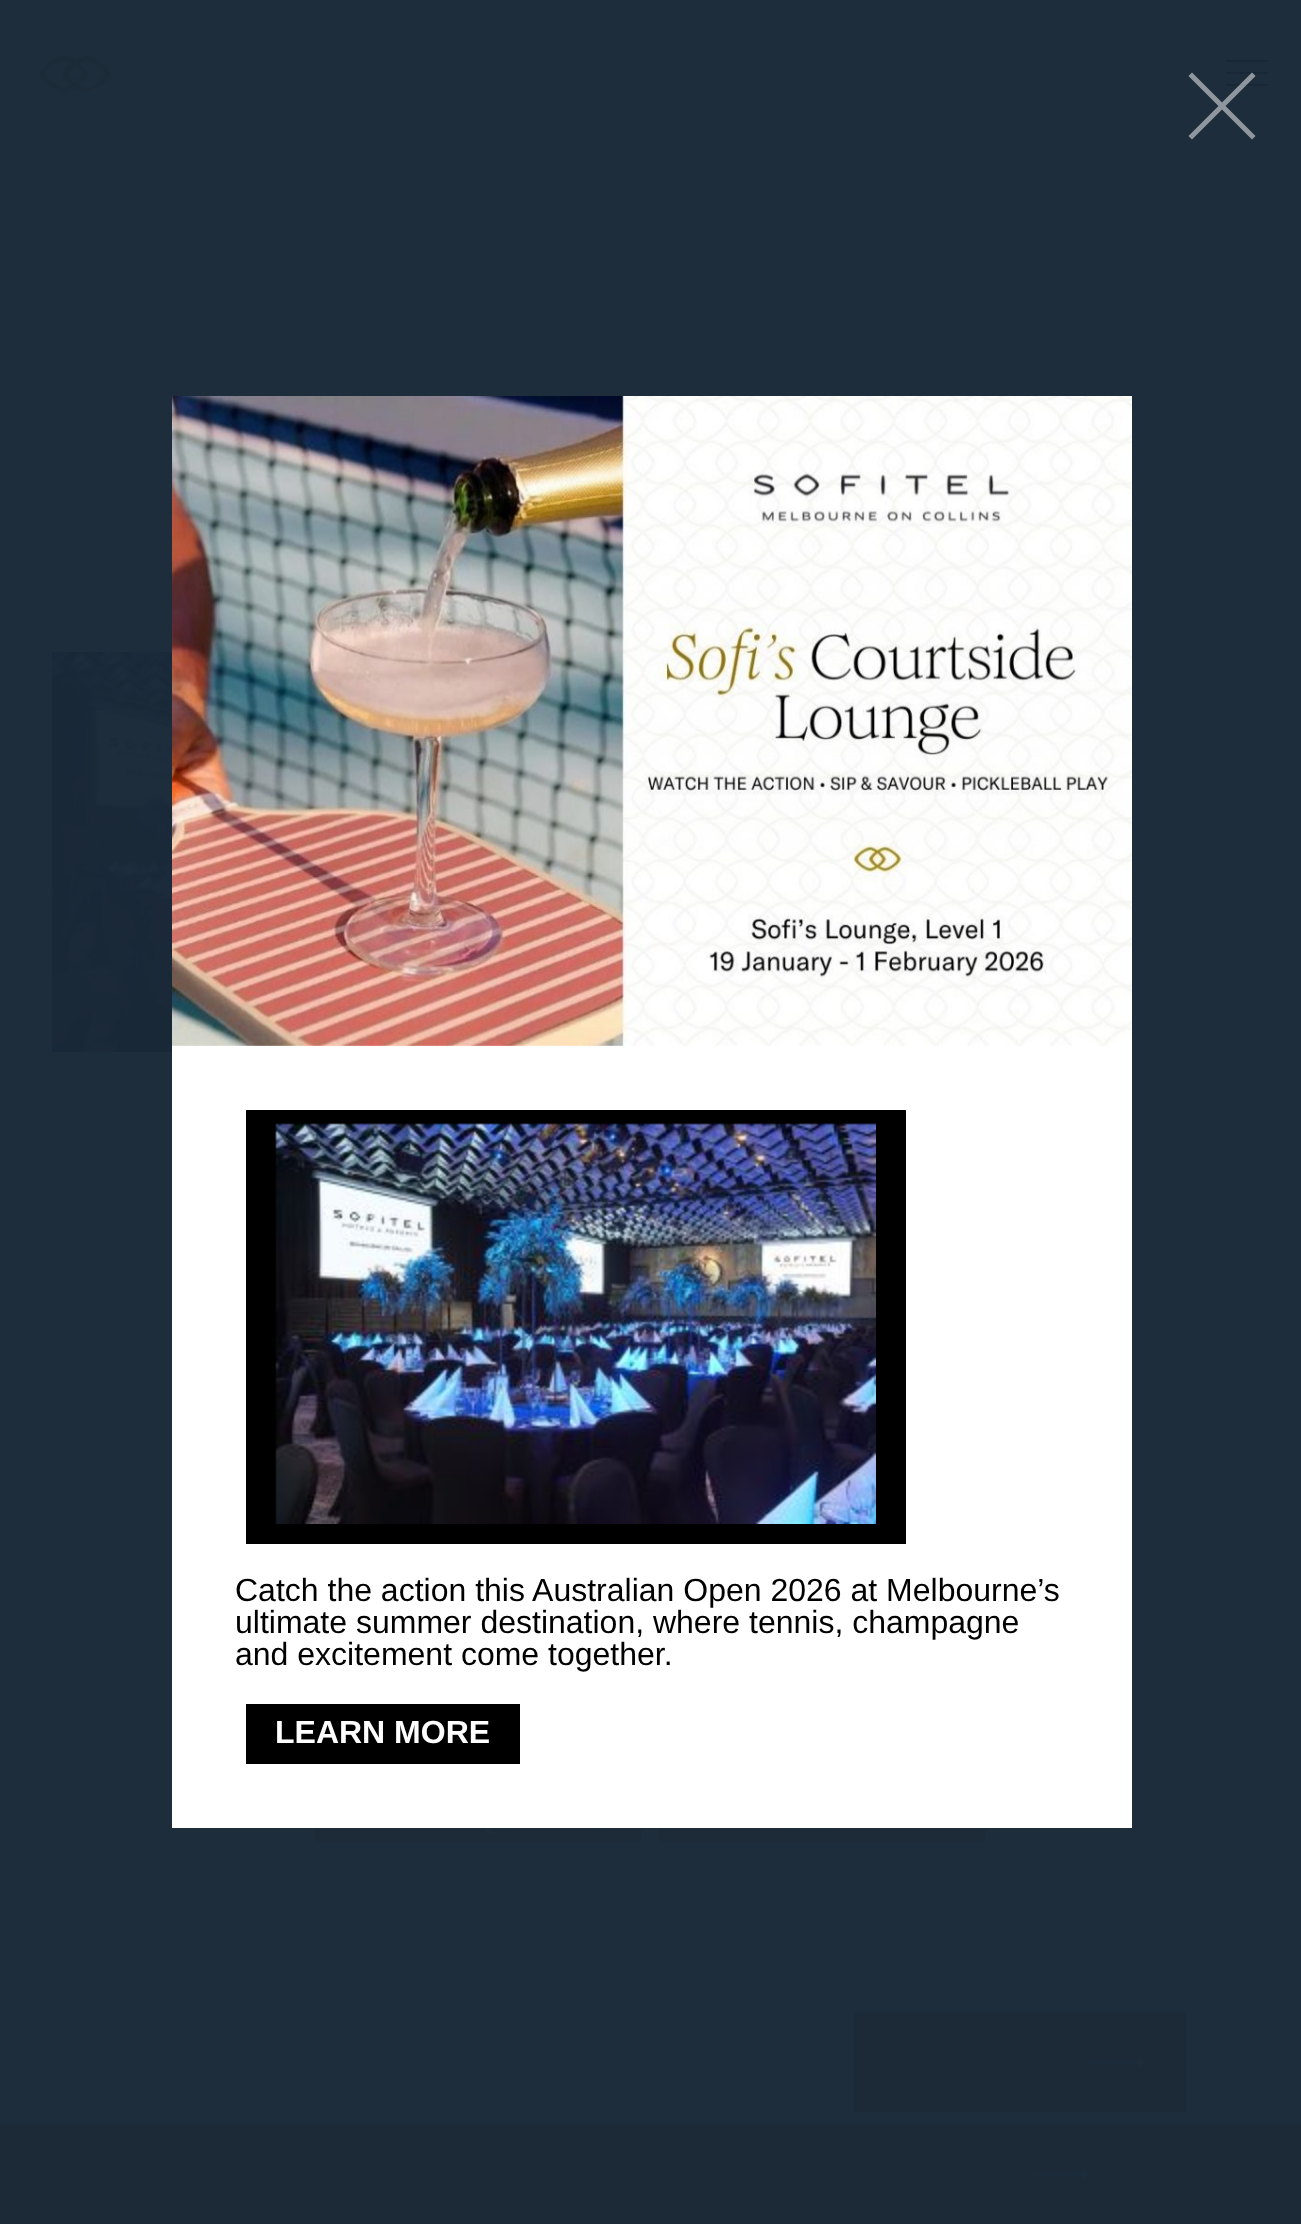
<?xml version="1.0" encoding="UTF-8"?>
<svg xmlns="http://www.w3.org/2000/svg" xmlns:xlink="http://www.w3.org/1999/xlink" width="1301" height="2224">
  <rect width="100%" height="100%" fill="#1e2d3c" />
  <image x="40" y="56" width="70" height="36" xlink:href="image1.png" />
  <rect x="1226" y="72" width="42" height="2" fill="#192837" />
  <rect x="1226" y="60" width="42" height="2" fill="#192837" />
  <rect x="1226" y="84" width="42" height="2" fill="#192837" />
  <rect y="2124" width="1301" height="100" fill="#1c2a38" />
  <image x="1030" y="2168" width="60" height="12" xlink:href="image2.png" />
  <image x="52" y="652" width="120" height="400" xlink:href="image3.png" />
  <rect x="314" y="1742" width="328" height="100" rx="8" fill="#1c2b37" />
  <image x="483" y="1828" width="119" height="6" xlink:href="image4.png" />
  <rect x="658" y="1742" width="328" height="100" rx="8" fill="#1c2b37" />
  <image x="783" y="1828" width="38" height="3" xlink:href="image5.png" />
  <rect x="854" y="2012" width="332" height="100" fill="#1c2a38" />
  <image x="1086" y="2056" width="60" height="12" xlink:href="image2.png" />
  <path d="M 1192 76 l 60 60 m -60 0 l 60 -60" fill="none" stroke="#ffffff" stroke-opacity="0.5" stroke-width="5" stroke-linecap="square" />
  <rect x="172" y="1045" width="960" height="783" fill="#ffffff" />
  <image x="172" y="396" width="960" height="650" xlink:href="image6.png" />
  <rect x="246" y="1110" width="660" height="434" fill="#000000" />
  <image x="275" y="1123" width="601" height="401" xlink:href="image7.png" />
  <rect x="246" y="1704" width="274" height="60" fill="#000000" />
  <text x="235" y="1601" style="font-family: Liberation Sans; font-size: 32px; fill: #000000">Catch the action this Australian Open 2026 at Melbourne’s</text>
  <text x="235" y="1633" style="font-family: Liberation Sans; font-size: 32px; fill: #000000">ultimate summer destination, where tennis, champagne</text>
  <text x="235" y="1665" style="font-family: Liberation Sans; font-size: 32px; fill: #000000">and excitement come together.</text>
  <text x="275" y="1743" style="font-family: Liberation Sans; font-size: 32px; font-weight: bold; fill: #ffffff">LEARN MORE</text>
</svg>
